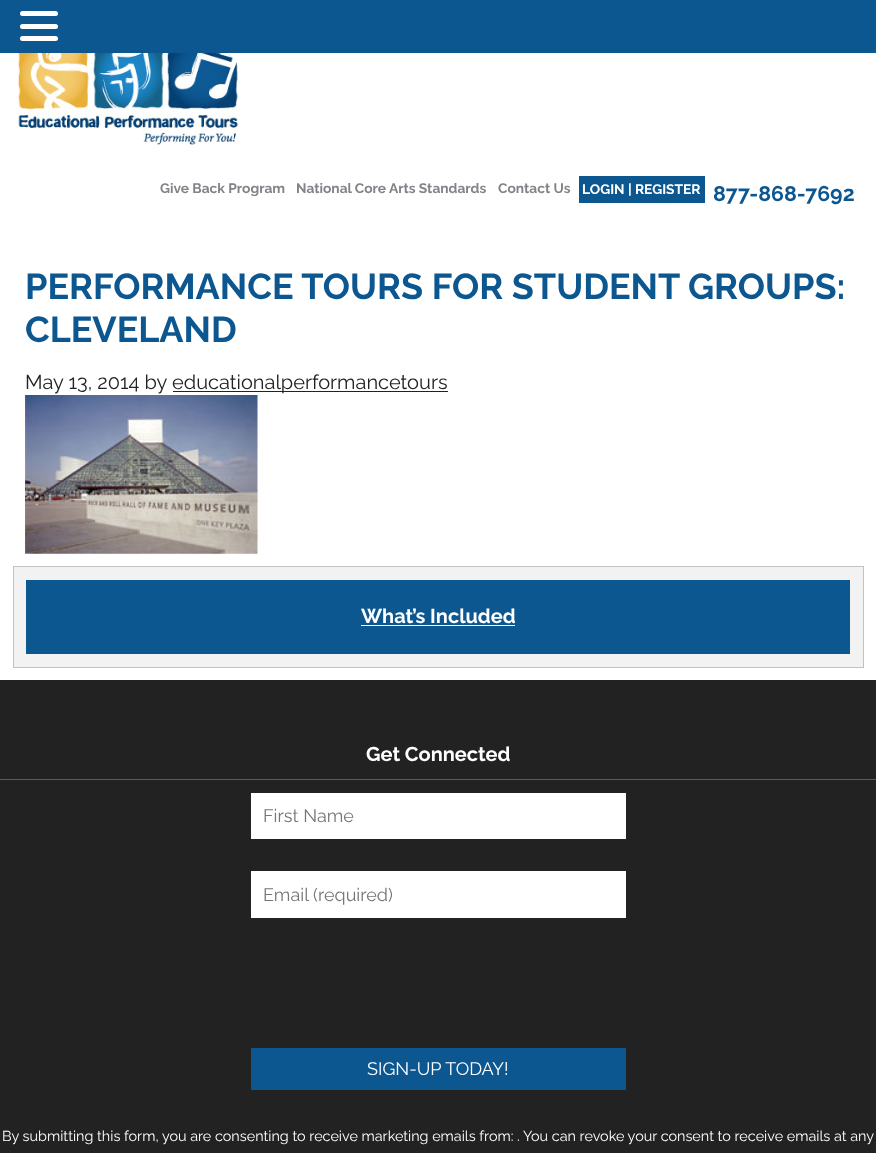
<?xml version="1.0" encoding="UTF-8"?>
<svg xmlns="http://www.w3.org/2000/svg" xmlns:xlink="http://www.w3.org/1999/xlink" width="876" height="1153">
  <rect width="100%" height="100%" fill="#ffffff" />
  <rect width="876" height="53" fill="#0d5791" />
  <rect x="20" y="11" width="38" height="5" rx="2.5" fill="#ffffff" />
  <rect x="20" y="24" width="38" height="5" rx="2.5" fill="#ffffff" />
  <rect x="20" y="36" width="38" height="5" rx="2.5" fill="#ffffff" />
  <image x="18" y="53" width="220" height="92" xlink:href="image1.png" />
  <rect x="579" y="176" width="126" height="27" fill="#0d5791" />
  <rect x="173" y="391" width="275" height="1" fill="#222222" />
  <image x="25" y="395" width="233" height="159" xlink:href="image2.png" />
  <rect x="13.5" y="566.5" width="850" height="101" fill="#f2f2f3" stroke="#c2c2c2" />
  <rect x="26" y="580" width="824" height="74" fill="#0d5791" />
  <rect x="361" y="625" width="154" height="1" fill="#ffffff" />
  <rect y="680" width="876" height="473" fill="#222222" />
  <rect y="779" width="876" height="1" fill="#5b5b5b" />
  <rect x="251" y="793" width="375" height="46" fill="#ffffff" />
  <rect x="251" y="871" width="375" height="47" fill="#ffffff" />
  <rect x="251" y="1048" width="375" height="42" fill="#0d5791" />
  <text x="160" y="193" style="font-family: Raleway; font-size: 13.75px; font-weight: bold; fill: #848288">Give Back Program</text>
  <text x="296" y="193" style="font-family: Raleway; font-size: 13.75px; font-weight: bold; fill: #848288">National Core Arts Standards</text>
  <text x="498" y="193" style="font-family: Raleway; font-size: 13.75px; font-weight: bold; fill: #848288">Contact Us</text>
  <text x="582" y="194" style="font-family: Raleway; font-size: 13.75px; font-weight: bold; fill: #ffffff">LOGIN | REGISTER</text>
  <text x="713" y="201" style="font-family: Raleway; font-size: 21.25px; font-weight: bold; fill: #0d5791">877-868-7692</text>
  <text x="25" y="299" style="font-family: Raleway; font-size: 36px; font-weight: bold; fill: #0d5791">PERFORMANCE TOURS FOR STUDENT GROUPS:</text>
  <text x="25" y="342" style="font-family: Raleway; font-size: 36px; font-weight: bold; fill: #0d5791">CLEVELAND</text>
  <text x="25" y="389" style="font-family: Raleway; font-size: 20px; fill: #222222">May 13, 2014 by</text>
  <text x="172" y="389" style="font-family: Raleway; font-size: 20px; fill: #222222">educationalperformancetours</text>
  <text x="361" y="623" style="font-family: Raleway; font-size: 20px; font-weight: bold; fill: #ffffff">What’s Included</text>
  <text x="366" y="761" style="font-family: Raleway; font-size: 20px; font-weight: bold; fill: #ffffff">Get Connected</text>
  <text x="263" y="822" style="font-family: Raleway; font-size: 18px; fill: #757575">First Name</text>
  <text x="263" y="901" style="font-family: Raleway; font-size: 18px; fill: #757575">Email (required)</text>
  <text x="367" y="1075" style="font-family: Raleway; font-size: 18px; fill: #ffffff">SIGN-UP TODAY!</text>
  <text x="2" y="1141" style="font-family: Raleway; font-size: 14.4px; fill: #ffffff">By submitting this form, you are consenting to receive marketing emails from: . You can revoke your consent to receive emails at any</text>
</svg>
